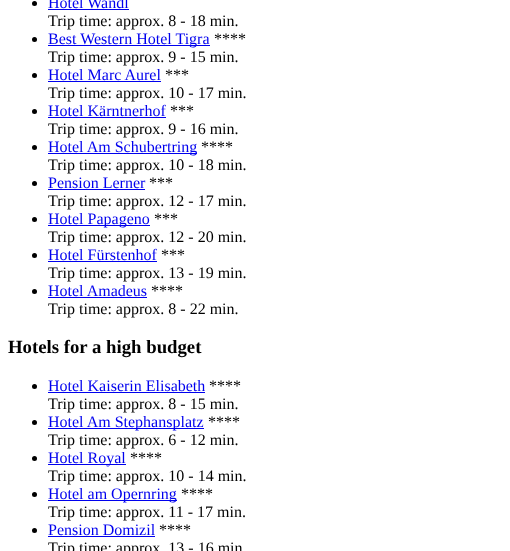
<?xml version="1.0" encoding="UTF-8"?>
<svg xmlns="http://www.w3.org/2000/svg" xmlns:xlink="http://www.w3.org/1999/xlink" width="510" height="551">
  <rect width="100%" height="100%" fill="#ffffff" />
  <circle cx="34.5" cy="3.5" r="2.5" fill="#000000" />
  <rect x="48" y="9" width="81" height="1" fill="#0000ee" />
  <circle cx="34.5" cy="39.5" r="2.5" fill="#000000" />
  <rect x="48" y="45" width="162" height="1" fill="#0000ee" />
  <circle cx="34.5" cy="75.5" r="2.5" fill="#000000" />
  <rect x="48" y="81" width="113" height="1" fill="#0000ee" />
  <circle cx="34.5" cy="111.5" r="2.5" fill="#000000" />
  <rect x="48" y="117" width="118" height="1" fill="#0000ee" />
  <circle cx="34.5" cy="147.5" r="2.5" fill="#000000" />
  <rect x="48" y="153" width="149" height="1" fill="#0000ee" />
  <circle cx="34.5" cy="183.5" r="2.5" fill="#000000" />
  <rect x="48" y="189" width="97" height="1" fill="#0000ee" />
  <circle cx="34.5" cy="219.5" r="2.5" fill="#000000" />
  <rect x="48" y="225" width="102" height="1" fill="#0000ee" />
  <circle cx="34.5" cy="255.5" r="2.5" fill="#000000" />
  <rect x="48" y="261" width="109" height="1" fill="#0000ee" />
  <circle cx="34.5" cy="291.5" r="2.5" fill="#000000" />
  <rect x="48" y="297" width="99" height="1" fill="#0000ee" />
  <circle cx="34.5" cy="386.5" r="2.5" fill="#000000" />
  <rect x="48" y="392" width="157" height="1" fill="#0000ee" />
  <circle cx="34.5" cy="422.5" r="2.5" fill="#000000" />
  <rect x="48" y="428" width="156" height="1" fill="#0000ee" />
  <circle cx="34.5" cy="458.5" r="2.5" fill="#000000" />
  <rect x="48" y="464" width="78" height="1" fill="#0000ee" />
  <circle cx="34.5" cy="494.5" r="2.5" fill="#000000" />
  <rect x="48" y="500" width="129" height="1" fill="#0000ee" />
  <circle cx="34.5" cy="530.5" r="2.5" fill="#000000" />
  <rect x="48" y="536" width="107" height="1" fill="#0000ee" />
  <text x="48" y="8" style="font-family: Liberation Serif; font-size: 16px; fill: #0000ee">Hotel Wandl</text>
  <text x="48" y="26" style="font-family: Liberation Serif; font-size: 16px; fill: #000000">Trip time: approx. 8 - 18 min.</text>
  <text x="48" y="44" style="font-family: Liberation Serif; font-size: 16px; fill: #0000ee">Best Western Hotel Tigra</text>
  <text x="214" y="44" style="font-family: Liberation Serif; font-size: 16px; fill: #000000">****</text>
  <text x="48" y="62" style="font-family: Liberation Serif; font-size: 16px; fill: #000000">Trip time: approx. 9 - 15 min.</text>
  <text x="48" y="80" style="font-family: Liberation Serif; font-size: 16px; fill: #0000ee">Hotel Marc Aurel</text>
  <text x="165" y="80" style="font-family: Liberation Serif; font-size: 16px; fill: #000000">***</text>
  <text x="48" y="98" style="font-family: Liberation Serif; font-size: 16px; fill: #000000">Trip time: approx. 10 - 17 min.</text>
  <text x="48" y="116" style="font-family: Liberation Serif; font-size: 16px; fill: #0000ee">Hotel Kärntnerhof</text>
  <text x="170" y="116" style="font-family: Liberation Serif; font-size: 16px; fill: #000000">***</text>
  <text x="48" y="134" style="font-family: Liberation Serif; font-size: 16px; fill: #000000">Trip time: approx. 9 - 16 min.</text>
  <text x="48" y="152" style="font-family: Liberation Serif; font-size: 16px; fill: #0000ee">Hotel Am Schubertring</text>
  <text x="201" y="152" style="font-family: Liberation Serif; font-size: 16px; fill: #000000">****</text>
  <text x="48" y="170" style="font-family: Liberation Serif; font-size: 16px; fill: #000000">Trip time: approx. 10 - 18 min.</text>
  <text x="48" y="188" style="font-family: Liberation Serif; font-size: 16px; fill: #0000ee">Pension Lerner</text>
  <text x="149" y="188" style="font-family: Liberation Serif; font-size: 16px; fill: #000000">***</text>
  <text x="48" y="206" style="font-family: Liberation Serif; font-size: 16px; fill: #000000">Trip time: approx. 12 - 17 min.</text>
  <text x="48" y="224" style="font-family: Liberation Serif; font-size: 16px; fill: #0000ee">Hotel Papageno</text>
  <text x="154" y="224" style="font-family: Liberation Serif; font-size: 16px; fill: #000000">***</text>
  <text x="48" y="242" style="font-family: Liberation Serif; font-size: 16px; fill: #000000">Trip time: approx. 12 - 20 min.</text>
  <text x="48" y="260" style="font-family: Liberation Serif; font-size: 16px; fill: #0000ee">Hotel Fürstenhof</text>
  <text x="161" y="260" style="font-family: Liberation Serif; font-size: 16px; fill: #000000">***</text>
  <text x="48" y="278" style="font-family: Liberation Serif; font-size: 16px; fill: #000000">Trip time: approx. 13 - 19 min.</text>
  <text x="48" y="296" style="font-family: Liberation Serif; font-size: 16px; fill: #0000ee">Hotel Amadeus</text>
  <text x="151" y="296" style="font-family: Liberation Serif; font-size: 16px; fill: #000000">****</text>
  <text x="48" y="314" style="font-family: Liberation Serif; font-size: 16px; fill: #000000">Trip time: approx. 8 - 22 min.</text>
  <text x="8" y="353" style="font-family: Liberation Serif; font-size: 18.75px; font-weight: bold; fill: #000000">Hotels for a high budget</text>
  <text x="48" y="391" style="font-family: Liberation Serif; font-size: 16px; fill: #0000ee">Hotel Kaiserin Elisabeth</text>
  <text x="209" y="391" style="font-family: Liberation Serif; font-size: 16px; fill: #000000">****</text>
  <text x="48" y="409" style="font-family: Liberation Serif; font-size: 16px; fill: #000000">Trip time: approx. 8 - 15 min.</text>
  <text x="48" y="427" style="font-family: Liberation Serif; font-size: 16px; fill: #0000ee">Hotel Am Stephansplatz</text>
  <text x="208" y="427" style="font-family: Liberation Serif; font-size: 16px; fill: #000000">****</text>
  <text x="48" y="445" style="font-family: Liberation Serif; font-size: 16px; fill: #000000">Trip time: approx. 6 - 12 min.</text>
  <text x="48" y="463" style="font-family: Liberation Serif; font-size: 16px; fill: #0000ee">Hotel Royal</text>
  <text x="130" y="463" style="font-family: Liberation Serif; font-size: 16px; fill: #000000">****</text>
  <text x="48" y="481" style="font-family: Liberation Serif; font-size: 16px; fill: #000000">Trip time: approx. 10 - 14 min.</text>
  <text x="48" y="499" style="font-family: Liberation Serif; font-size: 16px; fill: #0000ee">Hotel am Opernring</text>
  <text x="181" y="499" style="font-family: Liberation Serif; font-size: 16px; fill: #000000">****</text>
  <text x="48" y="517" style="font-family: Liberation Serif; font-size: 16px; fill: #000000">Trip time: approx. 11 - 17 min.</text>
  <text x="48" y="535" style="font-family: Liberation Serif; font-size: 16px; fill: #0000ee">Pension Domizil</text>
  <text x="159" y="535" style="font-family: Liberation Serif; font-size: 16px; fill: #000000">****</text>
  <text x="48" y="553" style="font-family: Liberation Serif; font-size: 16px; fill: #000000">Trip time: approx. 13 - 16 min</text>
</svg>
